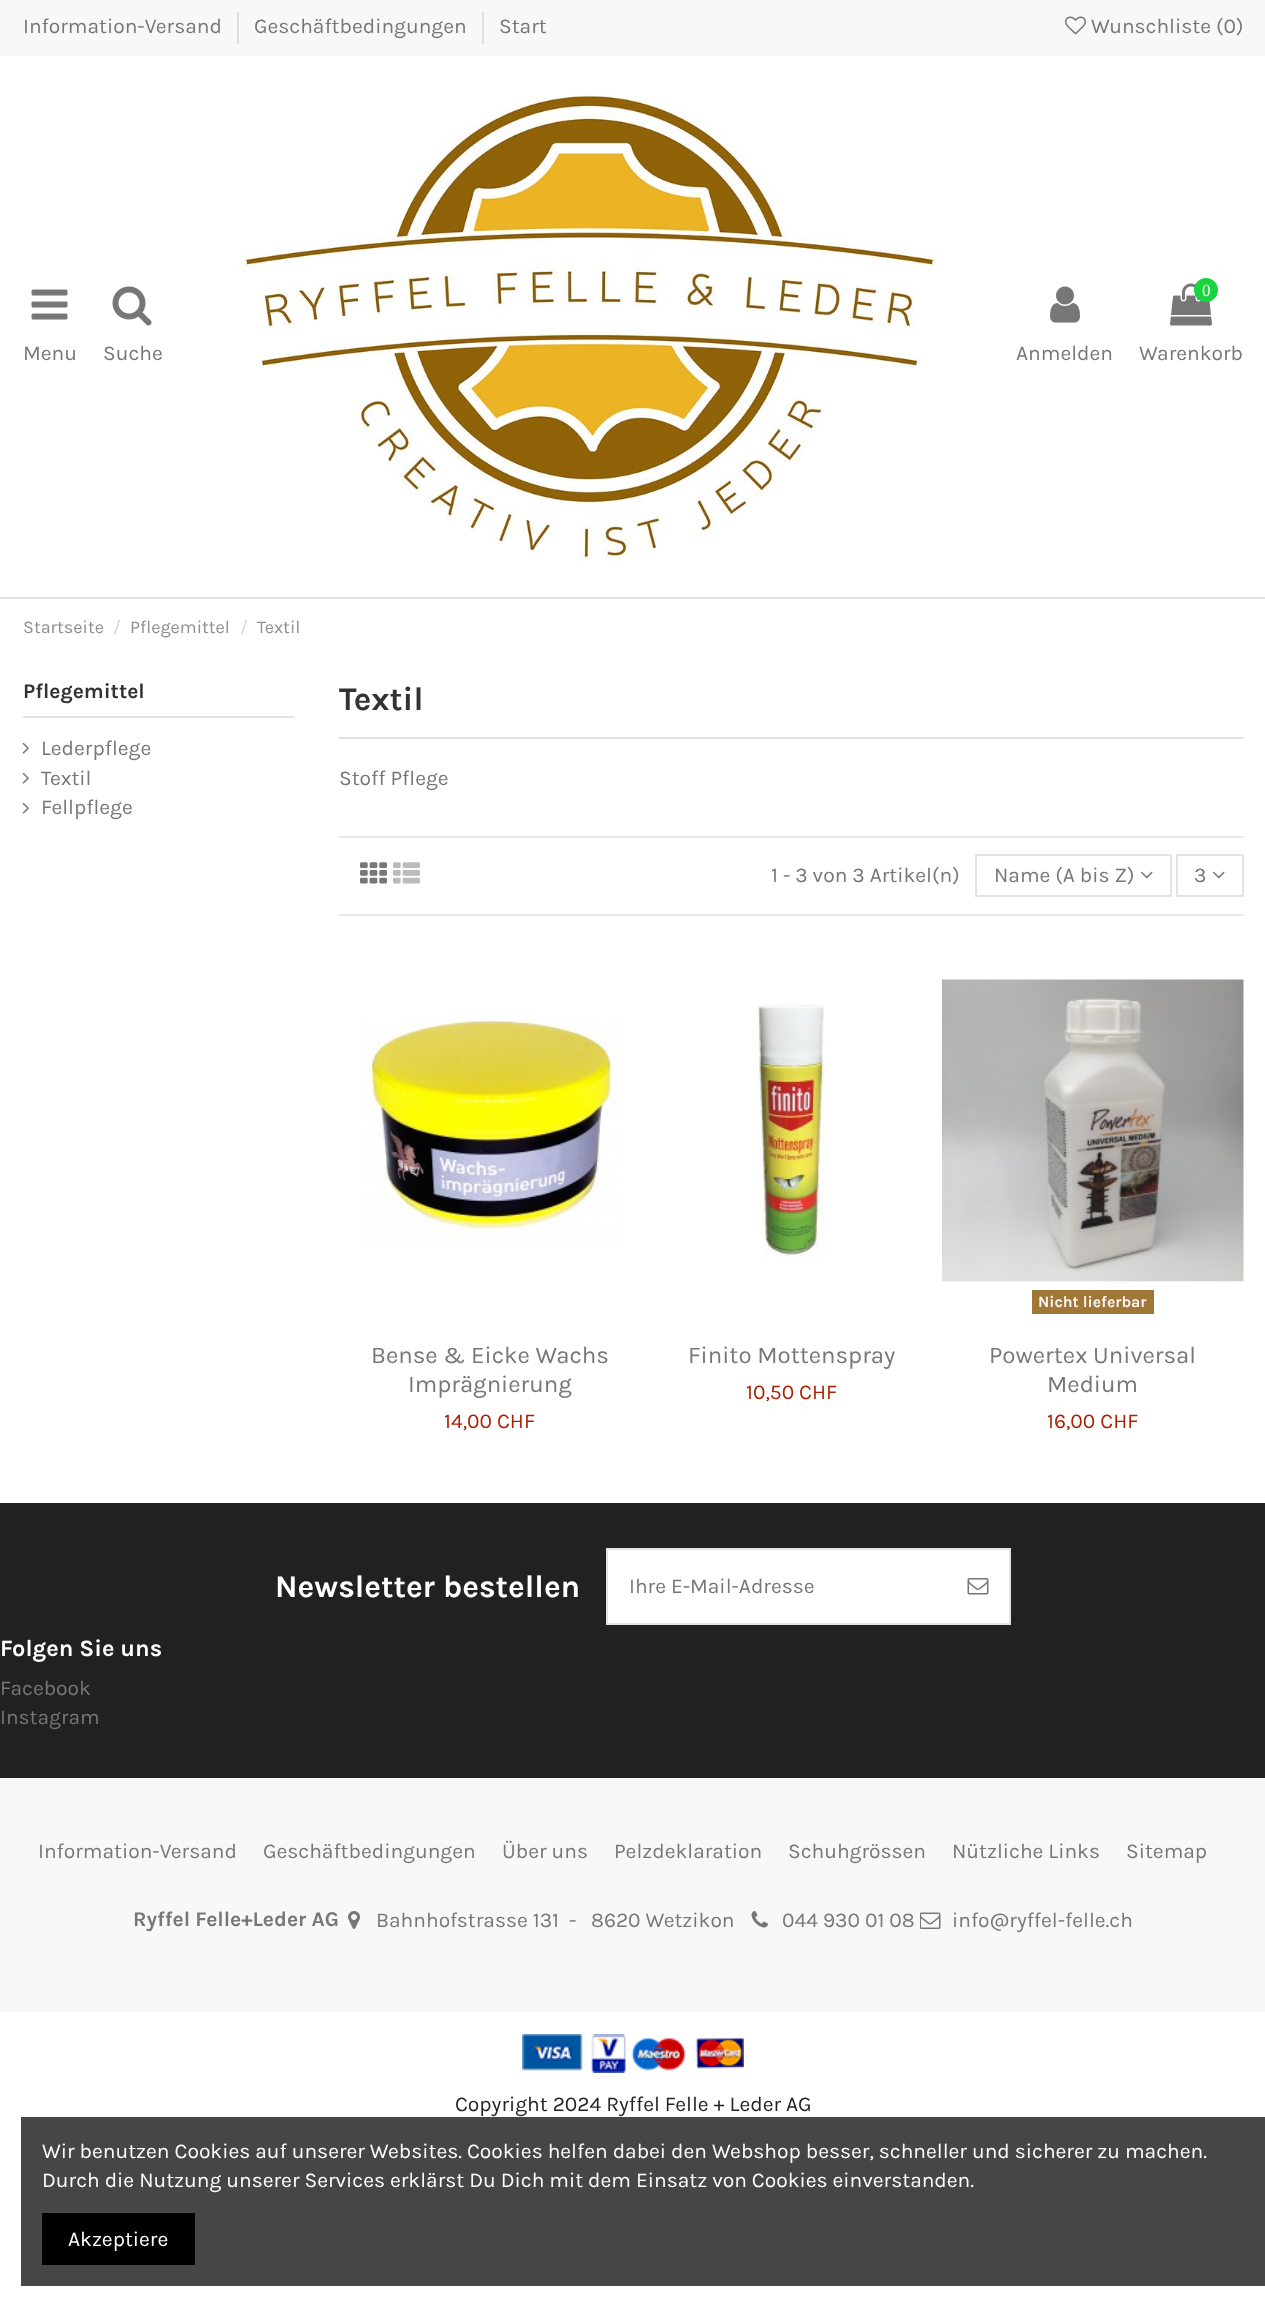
<?xml version="1.0" encoding="UTF-8"?>
<svg xmlns="http://www.w3.org/2000/svg" xmlns:xlink="http://www.w3.org/1999/xlink" width="1265" height="2306">
  <rect width="100%" height="100%" fill="#ffffff" />
  <rect width="1265" height="56" fill="#f8f8f8" />
  <rect x="237" y="12" width="2" height="32" fill="#dedede" />
  <rect x="482" y="12" width="2" height="32" fill="#dedede" />
  <image x="1065" y="16" width="21" height="19" xlink:href="image1.png" />
  <rect y="597" width="1265" height="2" fill="#e3e3e3" />
  <image x="31" y="289" width="37" height="31" xlink:href="image2.png" />
  <image x="112" y="286" width="40" height="40" xlink:href="image3.png" />
  <image x="236" y="88" width="702" height="478" xlink:href="image4.png" />
  <image x="1050" y="286" width="30" height="37" xlink:href="image5.png" />
  <image x="1170" y="283" width="42" height="43" xlink:href="image6.png" />
  <circle cx="1206" cy="290" r="12" fill="#1bd33f" />
  <rect x="23" y="716" width="271" height="2" fill="#e3e3e3" />
  <image x="22" y="742" width="7" height="12" xlink:href="image7.png" />
  <image x="22" y="772" width="7" height="12" xlink:href="image7.png" />
  <image x="22" y="802" width="7" height="12" xlink:href="image7.png" />
  <rect x="339" y="737" width="905" height="2" fill="#e3e3e3" />
  <rect x="339" y="836" width="905" height="2" fill="#e8e8e8" />
  <rect x="339" y="914" width="905" height="2" fill="#e8e8e8" />
  <image x="360" y="862" width="27" height="22" xlink:href="image8.png" />
  <image x="393" y="862" width="27" height="22" xlink:href="image9.png" />
  <rect x="976" y="855" width="195" height="41" fill="none" stroke="#e3e3e3" stroke-width="2" />
  <image x="1141" y="871" width="12" height="8" xlink:href="image10.png" />
  <rect x="1177" y="855" width="66" height="41" fill="none" stroke="#e3e3e3" stroke-width="2" />
  <image x="1213" y="871" width="12" height="8" xlink:href="image10.png" />
  <image x="359" y="1018" width="266" height="225" xlink:href="image11.png" />
  <image x="753" y="1004" width="72" height="258" xlink:href="image12.png" />
  <image x="942" y="979" width="302" height="303" xlink:href="image13.png" />
  <rect x="1032" y="1290" width="122" height="24" fill="#a17738" />
  <rect y="1778" width="1265" height="234" fill="#f8f8f8" />
  <rect y="1503" width="1265" height="275" fill="#212121" />
  <rect x="607" y="1549" width="403" height="75" fill="#ffffff" stroke="#e3e3e3" stroke-width="2" />
  <image x="967" y="1578" width="22" height="17" xlink:href="image14.png" />
  <image x="348" y="1911" width="12" height="18" xlink:href="image15.png" />
  <image x="751" y="1911" width="17" height="17" xlink:href="image16.png" />
  <image x="920" y="1912" width="21" height="17" xlink:href="image17.png" />
  <image x="522" y="2034" width="222" height="39" xlink:href="image18.png" />
  <rect x="21" y="2117" width="1244" height="169" fill="#464646" />
  <rect x="42" y="2213" width="153" height="52" fill="#000000" />
  <text x="23" y="33" style="font-family: Karla; font-size: 21px; fill: #777777">Information-Versand</text>
  <text x="254" y="33" style="font-family: Karla; font-size: 21px; fill: #777777">Geschäftbedingungen</text>
  <text x="499" y="33" style="font-family: Karla; font-size: 21px; fill: #777777">Start</text>
  <text x="1091" y="33" style="font-family: Karla; font-size: 21px; fill: #777777">Wunschliste (0)</text>
  <text x="23" y="360" style="font-family: Karla; font-size: 21px; fill: #777777">Menu</text>
  <text x="103" y="360" style="font-family: Karla; font-size: 21px; fill: #777777">Suche</text>
  <text x="1016" y="360" style="font-family: Karla; font-size: 21px; fill: #777777">Anmelden</text>
  <text x="1202" y="296" style="font-family: Liberation Serif; font-size: 17px; fill: #ffffff">0</text>
  <text x="1139" y="360" style="font-family: Karla; font-size: 21px; fill: #777777">Warenkorb</text>
  <text x="23" y="633" style="font-family: Karla; font-size: 18px; fill: #8f8f8f">Startseite</text>
  <text x="113" y="633" style="font-family: Karla; font-size: 18px; fill: #d2d2d2">/</text>
  <text x="130" y="633" style="font-family: Karla; font-size: 18px; fill: #8f8f8f">Pflegemittel</text>
  <text x="240" y="633" style="font-family: Karla; font-size: 18px; fill: #d2d2d2">/</text>
  <text x="257" y="633" style="font-family: Karla; font-size: 18px; fill: #8f8f8f">Textil</text>
  <text x="23" y="698" style="font-family: Karla; font-size: 21px; font-weight: bold; fill: #333333">Pflegemittel</text>
  <text x="41" y="755" style="font-family: Karla; font-size: 21px; fill: #777777">Lederpflege</text>
  <text x="41" y="785" style="font-family: Karla; font-size: 21px; fill: #777777">Textil</text>
  <text x="41" y="814" style="font-family: Karla; font-size: 21px; fill: #777777">Fellpflege</text>
  <text x="339" y="710" style="font-family: Karla; font-size: 33px; font-weight: bold; fill: #333333">Textil</text>
  <text x="339" y="785" style="font-family: Karla; font-size: 21px; fill: #777777">Stoff Pflege</text>
  <text x="771" y="882" style="font-family: Karla; font-size: 21px; fill: #777777">1 - 3 von 3 Artikel(n)</text>
  <text x="994" y="882" style="font-family: Karla; font-size: 21px; fill: #777777">Name (A bis Z)</text>
  <text x="1194" y="882" style="font-family: Karla; font-size: 21px; fill: #777777">3</text>
  <text x="371" y="1363" style="font-family: Karla; font-size: 24px; fill: #777777">Bense &amp; Eicke Wachs</text>
  <text x="408" y="1392" style="font-family: Karla; font-size: 24px; fill: #777777">Imprägnierung</text>
  <text x="444" y="1428" style="font-family: Karla; font-size: 21px; fill: #ad1f00">14,00 CHF</text>
  <text x="688" y="1363" style="font-family: Karla; font-size: 24px; fill: #777777">Finito Mottenspray</text>
  <text x="746" y="1399" style="font-family: Karla; font-size: 21px; fill: #ad1f00">10,50 CHF</text>
  <text x="1038" y="1307" style="font-family: Karla; font-size: 15.75px; font-weight: bold; fill: #fff7f7">Nicht lieferbar</text>
  <text x="989" y="1363" style="font-family: Karla; font-size: 24px; fill: #777777">Powertex Universal</text>
  <text x="1047" y="1392" style="font-family: Karla; font-size: 24px; fill: #777777">Medium</text>
  <text x="1047" y="1428" style="font-family: Karla; font-size: 21px; fill: #ad1f00">16,00 CHF</text>
  <text x="275" y="1597" style="font-family: Karla; font-size: 31.5px; font-weight: bold; fill: #ffffff">Newsletter bestellen</text>
  <text x="629" y="1593" style="font-family: Karla; font-size: 21px; fill: #777777">Ihre E-Mail-Adresse</text>
  <text x="0" y="1656" style="font-family: Karla; font-size: 23.5px; font-weight: bold; fill: #ffffff">Folgen Sie uns</text>
  <text x="0" y="1695" style="font-family: Karla; font-size: 21px; fill: #777777">Facebook</text>
  <text x="0" y="1724" style="font-family: Karla; font-size: 21px; fill: #777777">Instagram</text>
  <text x="38" y="1858" style="font-family: Karla; font-size: 21px; fill: #777777">Information-Versand</text>
  <text x="263" y="1858" style="font-family: Karla; font-size: 21px; fill: #777777">Geschäftbedingungen</text>
  <text x="502" y="1858" style="font-family: Karla; font-size: 21px; fill: #777777">Über uns</text>
  <text x="614" y="1858" style="font-family: Karla; font-size: 21px; fill: #777777">Pelzdeklaration</text>
  <text x="788" y="1858" style="font-family: Karla; font-size: 21px; fill: #777777">Schuhgrössen</text>
  <text x="952" y="1858" style="font-family: Karla; font-size: 21px; fill: #777777">Nützliche Links</text>
  <text x="1126" y="1858" style="font-family: Karla; font-size: 21px; fill: #777777">Sitemap</text>
  <text x="133" y="1926" style="font-family: Karla; font-size: 21px; font-weight: bold; fill: #777777">Ryffel Felle+Leder AG</text>
  <text x="376" y="1927" style="font-family: Karla; font-size: 21px; fill: #777777" xml:space="preserve">Bahnhofstrasse 131  -</text>
  <text x="591" y="1927" style="font-family: Karla; font-size: 21px; fill: #777777">8620 Wetzikon</text>
  <text x="782" y="1927" style="font-family: Karla; font-size: 21px; fill: #777777">044 930 01 08</text>
  <text x="952" y="1927" style="font-family: Karla; font-size: 21px; fill: #777777">info@ryffel-felle.ch</text>
  <text x="455" y="2111" style="font-family: Karla; font-size: 21px; fill: #212529">Copyright 2024 Ryffel Felle + Leder AG</text>
  <text x="42" y="2158" style="font-family: Karla; font-size: 21px; fill: #ffffff">Wir benutzen Cookies auf unserer Websites. Cookies helfen dabei den Webshop besser, schneller und sicherer zu machen.</text>
  <text x="42" y="2187" style="font-family: Karla; font-size: 21px; fill: #ffffff">Durch die Nutzung unserer Services erklärst Du Dich mit dem Einsatz von Cookies einverstanden.</text>
  <text x="68" y="2246" style="font-family: Karla; font-size: 21px; fill: #ffffff">Akzeptiere</text>
</svg>
